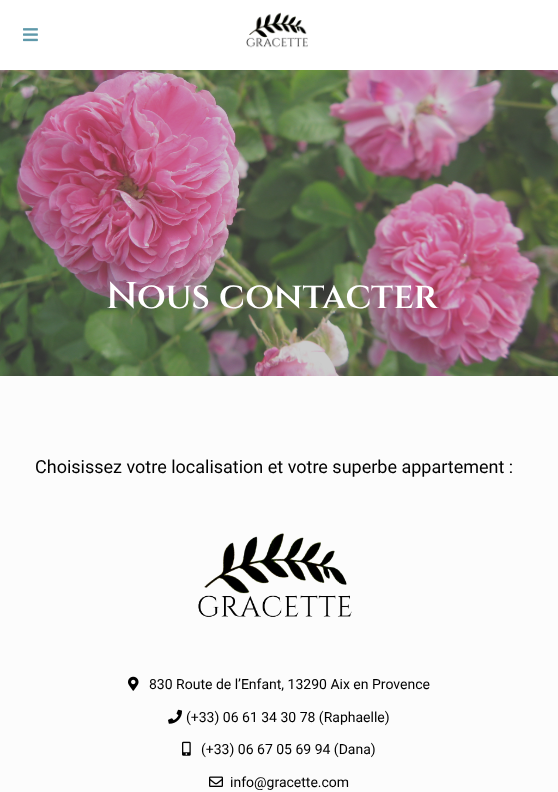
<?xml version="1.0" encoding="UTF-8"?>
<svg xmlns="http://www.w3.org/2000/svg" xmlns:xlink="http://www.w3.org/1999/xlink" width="558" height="792">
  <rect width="100%" height="100%" fill="#fcfcfc" />
  <rect width="558" height="70" fill="#ffffff" />
  <image x="23" y="28" width="15" height="14" xlink:href="image1.png" />
  <image x="246" y="12" width="62" height="36" xlink:href="image2.png" />
  <image x="0" y="70" width="558" height="306" xlink:href="image3.png" />
  <image x="198" y="533" width="154" height="84" xlink:href="image4.png" />
  <image x="128" y="676" width="11" height="15" xlink:href="image5.png" />
  <image x="168" y="709" width="14" height="15" xlink:href="image6.png" />
  <image x="182" y="741" width="9" height="15" xlink:href="image7.png" />
  <image x="209" y="776" width="14" height="11" xlink:href="image8.png" />
  <text x="106" y="308" style="font-family: Cinzel; font-size: 37px; font-weight: 600; fill: #ffffff">Nous contacter</text>
  <text x="35" y="473" style="font-family: Roboto; font-size: 18px; fill: #000000">Choisissez votre localisation et votre superbe appartement :</text>
  <text x="149" y="689" style="font-family: Roboto; font-size: 14px; fill: #000000">830 Route de l’Enfant, 13290 Aix en Provence</text>
  <text x="186" y="722" style="font-family: Roboto; font-size: 14px; fill: #000000">(+33) 06 61 34 30 78 (Raphaelle)</text>
  <text x="201" y="754" style="font-family: Roboto; font-size: 14px; fill: #000000">(+33) 06 67 05 69 94 (Dana)</text>
  <text x="230" y="787" style="font-family: Roboto; font-size: 14px; fill: #000000">info@gracette.com</text>
</svg>
